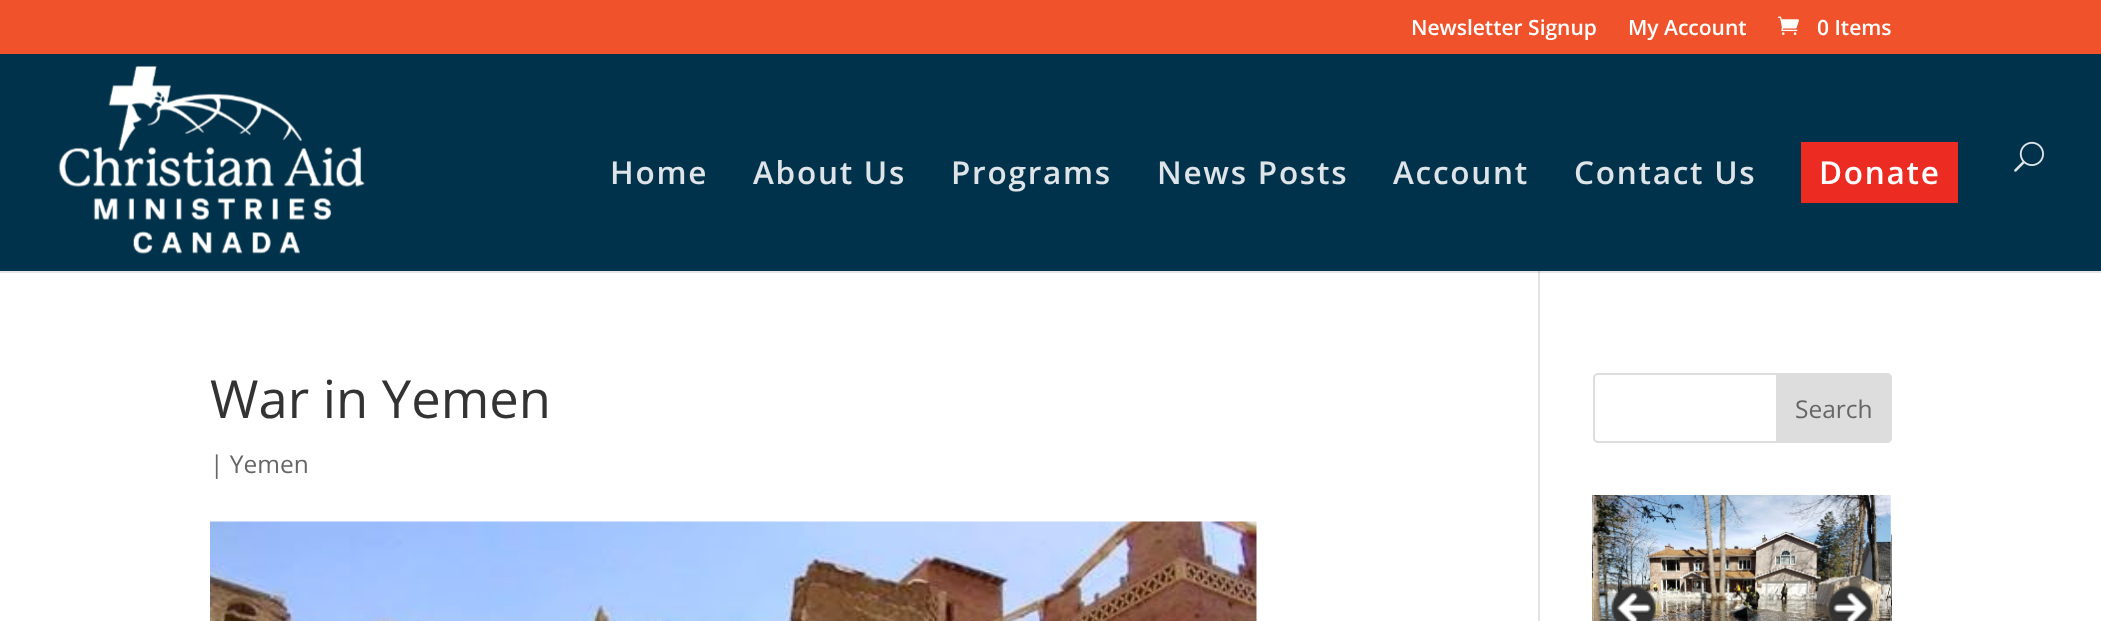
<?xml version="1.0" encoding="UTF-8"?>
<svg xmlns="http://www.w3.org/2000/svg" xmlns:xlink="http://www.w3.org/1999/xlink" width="2101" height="621">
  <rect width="100%" height="100%" fill="#ffffff" />
  <rect width="2101" height="54" fill="#f0532c" />
  <image x="1778" y="16" width="21" height="19" xlink:href="image1.png" />
  <rect x="1538" y="271" width="2" height="350" fill="#e2e2e2" />
  <path d="M 0 271 v 2 h 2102 v -217 v 215 z" fill="#000000" fill-opacity="0.1" />
  <rect y="54" width="2101" height="217" fill="#00334b" />
  <image x="58" y="66" width="307" height="188" xlink:href="image2.png" />
  <image x="2014" y="141" width="30" height="31" xlink:href="image3.png" />
  <rect x="1801" y="142" width="157" height="61" fill="#ec2c22" />
  <image x="210" y="521" width="1047" height="100" xlink:href="image4.png" />
  <rect x="1594" y="374" width="297" height="68" rx="4" fill="none" stroke="#dddddd" stroke-width="2" />
  <path d="M 1777 374 h 110 c 2 0 4 2 4 4 v 60 c 0 2 -2 4 -4 4 h -110 z" fill="#dddddd" stroke="#dddddd" stroke-width="2" />
  <image x="1592" y="495" width="2" height="126" xlink:href="image5.png" />
  <image x="1592" y="495" width="299" height="126" xlink:href="image6.png" />
  <image x="1891" y="511" width="1" height="110" xlink:href="image7.png" />
  <image x="1611" y="585" width="45" height="36" xlink:href="image8.png" />
  <image x="1828" y="585" width="45" height="36" xlink:href="image9.png" />
  <text x="1411" y="35" style="font-family: Open Sans; font-size: 21px; font-weight: 600; fill: #ffffff">Newsletter Signup</text>
  <text x="1628" y="35" style="font-family: Open Sans; font-size: 21px; font-weight: 600; fill: #ffffff">My Account</text>
  <text x="1817" y="35" style="font-family: Open Sans; font-size: 21px; font-weight: 600; fill: #ffffff">0 Items</text>
  <text x="610" y="184" style="font-family: Open Sans; font-size: 31.5px; font-weight: 600; letter-spacing: 1.75px; fill: #dee4e8">Home</text>
  <text x="753" y="184" style="font-family: Open Sans; font-size: 31.5px; font-weight: 600; letter-spacing: 1.75px; fill: #dee4e8">About Us</text>
  <text x="951" y="184" style="font-family: Open Sans; font-size: 31.5px; font-weight: 600; letter-spacing: 1.75px; fill: #dee4e8">Programs</text>
  <text x="1157" y="184" style="font-family: Open Sans; font-size: 31.5px; font-weight: 600; letter-spacing: 1.75px; fill: #dee4e8">News Posts</text>
  <text x="1393" y="184" style="font-family: Open Sans; font-size: 31.5px; font-weight: 600; letter-spacing: 1.75px; fill: #dee4e8">Account</text>
  <text x="1574" y="184" style="font-family: Open Sans; font-size: 31.5px; font-weight: 600; letter-spacing: 1.75px; fill: #dee4e8">Contact Us</text>
  <text x="1819" y="184" style="font-family: Open Sans; font-size: 31.5px; font-weight: 600; letter-spacing: 1.75px; fill: #ffffff">Donate</text>
  <text x="210" y="418" style="font-family: Open Sans; font-size: 52.5px; fill: #333333">War in Yemen</text>
  <text x="210" y="473" style="font-family: Open Sans; font-size: 24.5px; fill: #666666">| Yemen</text>
  <text x="1795" y="418" style="font-family: Open Sans; font-size: 24.5px; fill: #666666">Search</text>
</svg>
